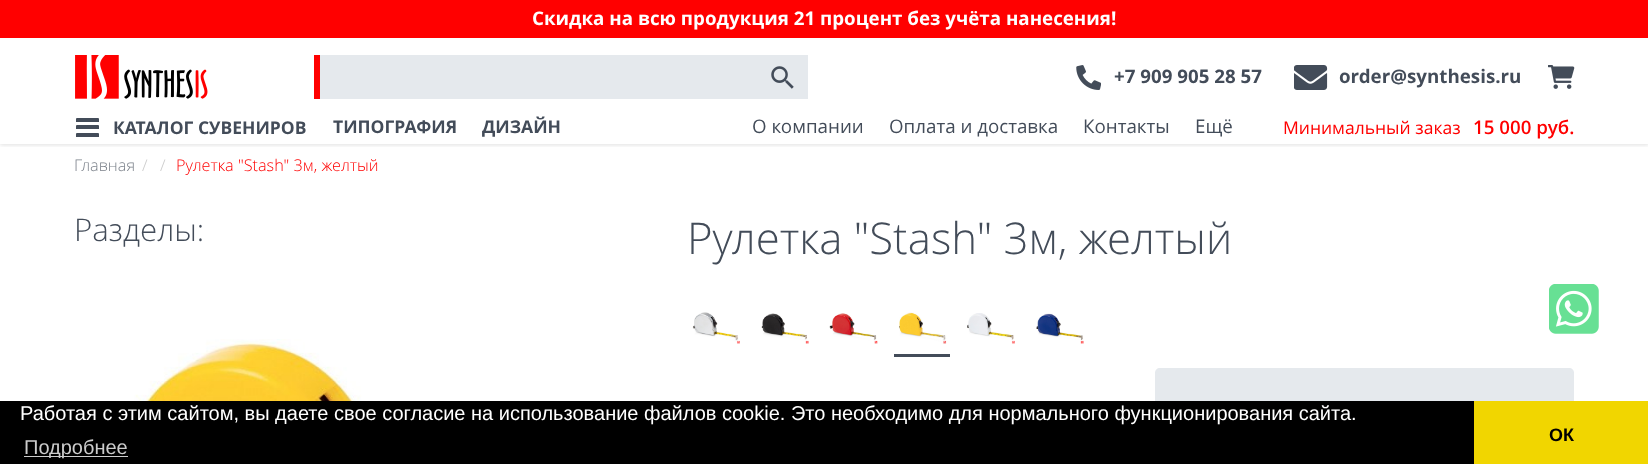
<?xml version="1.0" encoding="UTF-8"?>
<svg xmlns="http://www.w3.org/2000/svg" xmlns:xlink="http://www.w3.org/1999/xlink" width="1648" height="464">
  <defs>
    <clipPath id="clip1"><rect x="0" y="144" width="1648" height="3" /></clipPath>
  </defs>
  <rect width="100%" height="100%" fill="#ffffff" />
  <g clip-path="url(#clip1)">
    <rect y="1" width="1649" height="144" fill="#000000" fill-opacity="0.12" filter="blur(2px)" />
  </g>
  <rect width="1648" height="38" fill="#ff0000" />
  <image x="75" y="55" width="133" height="44" xlink:href="image1.png" />
  <rect x="320" y="55" width="488" height="44" fill="#e5e9ed" />
  <rect x="314" y="55" width="6" height="44" fill="#ff0000" />
  <image x="771" y="66" width="23" height="23" xlink:href="image2.png" />
  <image x="1076" y="65" width="25" height="25" xlink:href="image3.png" />
  <image x="1294" y="65" width="34" height="25" xlink:href="image4.png" />
  <image x="1548" y="65" width="27" height="24" xlink:href="image5.png" />
  <rect y="143" width="1648" height="1" fill="#ffffff" />
  <rect x="76" y="118" width="23" height="4" rx="1" fill="#434c59" />
  <rect x="98" y="119" width="1" height="3" fill="#434c59" />
  <rect x="76" y="119" width="1" height="3" fill="#434c59" />
  <rect x="76" y="125" width="23" height="4" rx="1" fill="#434c59" />
  <rect x="98" y="126" width="1" height="3" fill="#434c59" />
  <rect x="76" y="126" width="1" height="3" fill="#434c59" />
  <rect x="76" y="133" width="23" height="4" rx="1" fill="#434c59" />
  <rect x="98" y="134" width="1" height="3" fill="#434c59" />
  <rect x="76" y="134" width="1" height="3" fill="#434c59" />
  <image x="122" y="339" width="267" height="62" xlink:href="image6.png" />
  <image x="692" y="312" width="48" height="32" xlink:href="image7.png" />
  <image x="761" y="313" width="48" height="31" xlink:href="image8.png" />
  <image x="829" y="313" width="49" height="31" xlink:href="image9.png" />
  <rect x="894" y="354" width="56" height="3" fill="#434c59" />
  <image x="899" y="312" width="48" height="32" xlink:href="image10.png" />
  <image x="967" y="313" width="48" height="31" xlink:href="image11.png" />
  <image x="1036" y="313" width="48" height="31" xlink:href="image12.png" />
  <path d="M 1160 368 h 409 c 3 0 5 2 5 5 v 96 h -419 v -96 c 0 -3 2 -5 5 -5 z" fill="#e5e9ed" />
  <image x="1549" y="284" width="50" height="50" xlink:href="image13.png" />
  <rect y="401" width="1474" height="63" fill="#000000" />
  <rect x="24" y="456" width="104" height="1" fill="#cccccc" />
  <rect x="1474" y="401" width="174" height="63" fill="#f1d600" />
  <text x="532" y="25" style="font-family: Open Sans; font-size: 18.75px; font-weight: bold; fill: #ffffff">Скидка на всю продукция 21 процент без учёта нанесения!</text>
  <text x="1114" y="83" style="font-family: Open Sans; font-size: 18.75px; font-weight: bold; fill: #434c59">+7 909 905 28 57</text>
  <text x="1339" y="83" style="font-family: Open Sans; font-size: 18.75px; font-weight: bold; fill: #434c59">order@synthesis.ru</text>
  <text x="113" y="134" style="font-family: Open Sans; font-size: 17.5px; font-weight: bold; fill: #434c59">КАТАЛОГ СУВЕНИРОВ</text>
  <text x="333" y="133" style="font-family: Open Sans; font-size: 17.5px; font-weight: bold; fill: #434c59">ТИПОГРАФИЯ</text>
  <text x="482" y="133" style="font-family: Open Sans; font-size: 17.5px; font-weight: bold; fill: #434c59">ДИЗАЙН</text>
  <text x="752" y="133" style="font-family: Open Sans; font-size: 18.75px; fill: #434c59">О компании</text>
  <text x="889" y="133" style="font-family: Open Sans; font-size: 18.75px; fill: #434c59">Оплата и доставка</text>
  <text x="1083" y="133" style="font-family: Open Sans; font-size: 18.75px; fill: #434c59">Контакты</text>
  <text x="1195" y="133" style="font-family: Open Sans; font-size: 18.75px; fill: #434c59">Ещё</text>
  <text x="1283" y="134" style="font-family: Open Sans; font-size: 17.5px; fill: #ff0000">Минимальный заказ</text>
  <text x="1473" y="134" style="font-family: Open Sans; font-size: 18.75px; font-weight: 600; fill: #ff0000">15 000 руб.</text>
  <text x="74" y="171" style="font-family: Open Sans; font-size: 16.25px; font-weight: 300; fill: #7b818a">Главная</text>
  <text x="142" y="171" style="font-family: Open Sans; font-size: 16.25px; font-weight: 300; fill: #cccccc">/</text>
  <text x="160" y="171" style="font-family: Open Sans; font-size: 16.25px; font-weight: 300; fill: #cccccc">/</text>
  <text x="176" y="171" style="font-family: Open Sans; font-size: 16.25px; font-weight: 300; fill: #ff0000">Рулетка "Stash" 3м, желтый</text>
  <text x="74" y="241" style="font-family: Open Sans; font-size: 31.25px; font-weight: 300; fill: #434c59">Разделы:</text>
  <text x="687" y="254" style="font-family: Open Sans; font-size: 43.75px; font-weight: 300; fill: #434c59">Рулетка "Stash" 3м, желтый</text>
  <text x="20" y="420" style="font-family: Liberation Sans; font-size: 20px; fill: #ffffff">Работая с этим сайтом, вы даете свое согласие на использование файлов cookie. Это необходимо для нормального функционирования сайта.</text>
  <text x="24" y="454" style="font-family: Liberation Sans; font-size: 20px; fill: #cccccc">Подробнее</text>
  <text x="1549" y="441" style="font-family: Liberation Sans; font-size: 18px; font-weight: bold; fill: #000000">ОК</text>
</svg>
